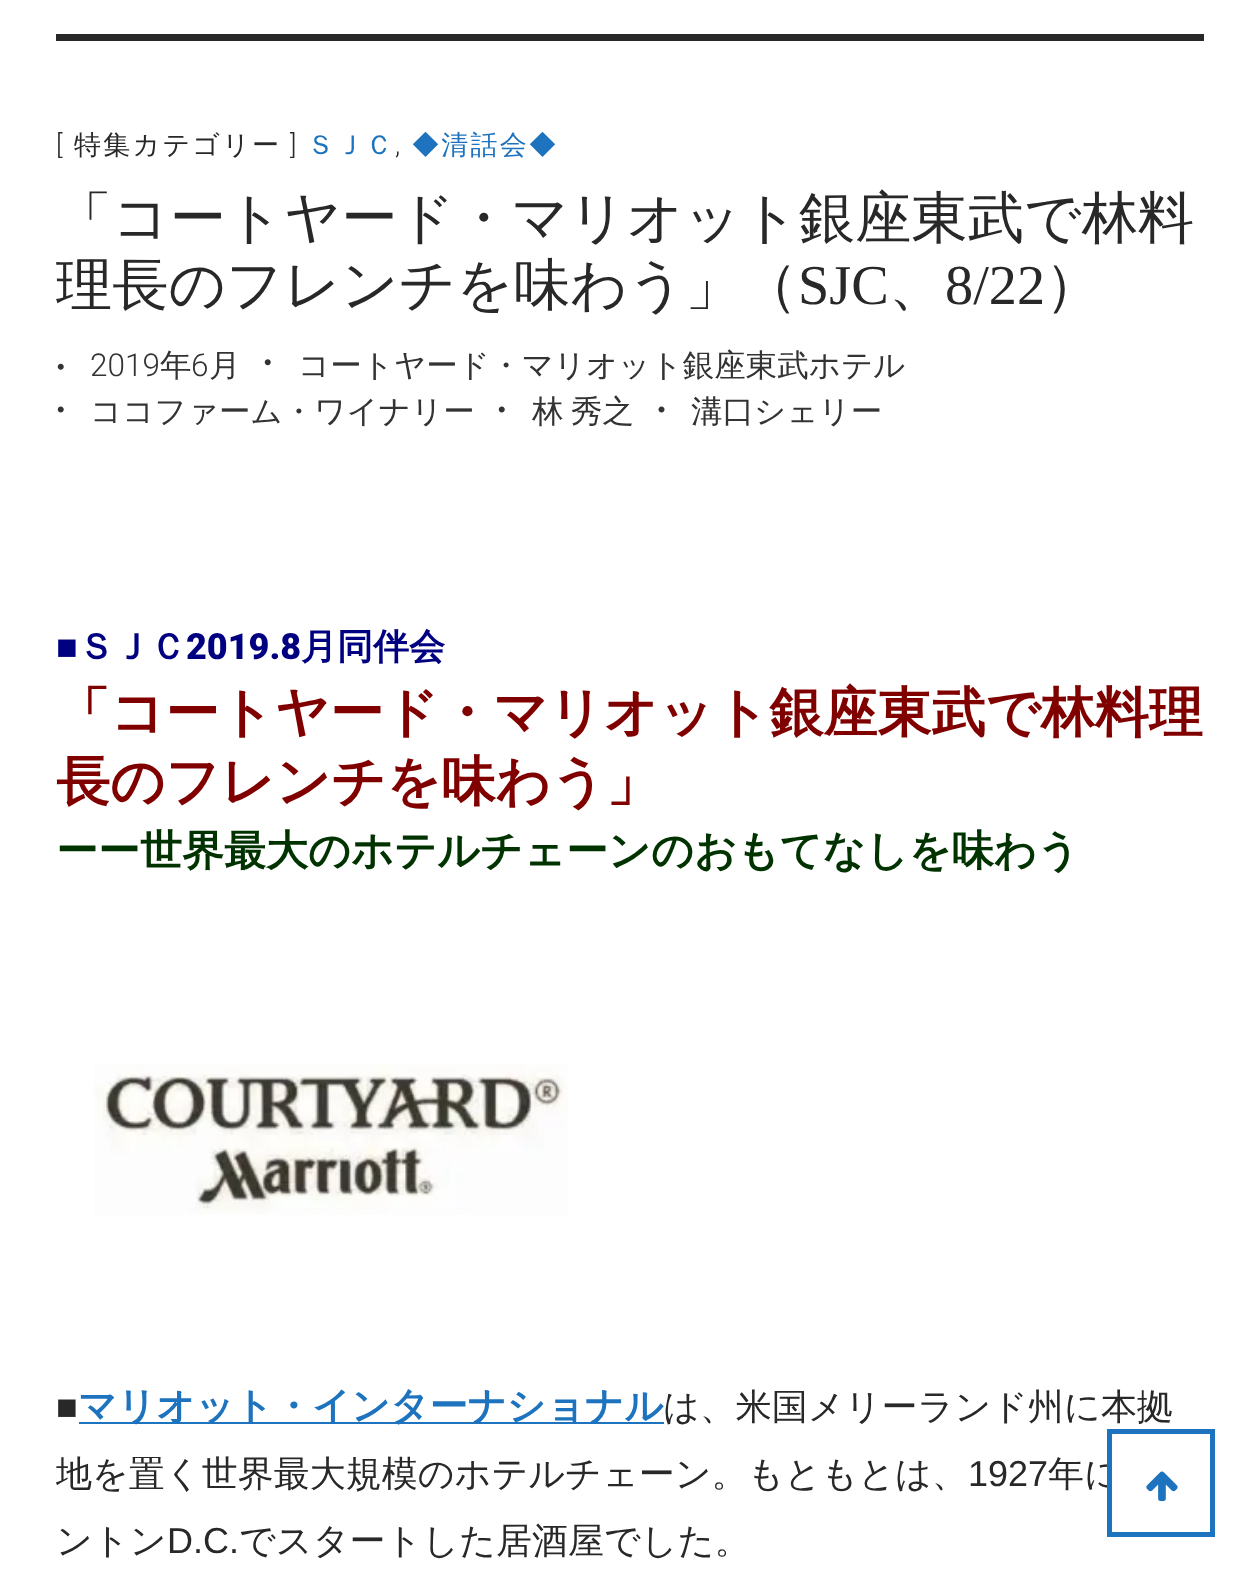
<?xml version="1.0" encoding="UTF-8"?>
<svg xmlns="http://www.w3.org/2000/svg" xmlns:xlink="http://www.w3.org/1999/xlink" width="1260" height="1581">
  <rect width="100%" height="100%" fill="#ffffff" />
  <rect x="56" y="34" width="1148" height="7" fill="#282828" />
  <image x="264" y="359" width="7" height="7" xlink:href="image1.png" />
  <image x="57" y="406" width="7" height="7" xlink:href="image2.png" />
  <image x="498" y="406" width="7" height="7" xlink:href="image2.png" />
  <image x="658" y="406" width="7" height="7" xlink:href="image3.png" />
  <image x="57" y="363" width="7" height="7" xlink:href="image4.png" />
  <image x="94" y="1064" width="474" height="151" xlink:href="image5.png" />
  <rect x="79" y="1422" width="585" height="2" fill="#1e73be" />
  <text x="56" y="154" style="font-family: Roboto; font-size: 27px; font-weight: 300; letter-spacing: 2.25px; fill: #282828">[</text>
  <text x="74" y="154" style="font-family: WenQuanYi Zen Hei; font-size: 27px; font-weight: 500; letter-spacing: 2.25px; fill: #282828">特集カテゴリー</text>
  <text x="290" y="154" style="font-family: Roboto; font-size: 27px; font-weight: 300; letter-spacing: 2.25px; fill: #282828">]</text>
  <text x="307" y="154" style="font-family: WenQuanYi Zen Hei; font-size: 27px; font-weight: 500; letter-spacing: 2.25px; fill: #1e73be">ＳＪＣ</text>
  <text x="395" y="154" style="font-family: Roboto; font-size: 27px; font-weight: 300; letter-spacing: 2.25px; fill: #282828">,</text>
  <text x="412" y="154" style="font-family: WenQuanYi Zen Hei; font-size: 27px; font-weight: 500; letter-spacing: 2.25px; fill: #1e73be">◆清話会◆</text>
  <text x="56" y="237" style="font-family: WenQuanYi Zen Hei; font-size: 56.25px; font-weight: 500; fill: #282828">「コートヤード・マリオット銀座東武で林料</text>
  <text x="56" y="304" style="font-family: WenQuanYi Zen Hei; font-size: 56.25px; font-weight: 500; fill: #282828">理長のフレンチを味わう」（</text>
  <text x="798" y="304" style="font-family: Liberation Serif; font-size: 56.25px; fill: #282828">SJC</text>
  <text x="889" y="304" style="font-family: WenQuanYi Zen Hei; font-size: 56.25px; font-weight: 500; fill: #282828">、</text>
  <text x="945" y="304" style="font-family: Liberation Serif; font-size: 56.25px; fill: #282828">8/22</text>
  <text x="1045" y="304" style="font-family: WenQuanYi Zen Hei; font-size: 56.25px; font-weight: 500; fill: #282828">）</text>
  <text x="298" y="376" style="font-family: WenQuanYi Zen Hei; font-size: 31.5px; font-weight: 500; fill: #333333">コートヤード・マリオット銀座東武ホテル</text>
  <text x="90" y="422" style="font-family: WenQuanYi Zen Hei; font-size: 31.5px; font-weight: 500; fill: #333333">ココファーム・ワイナリー</text>
  <text x="532" y="422" word-spacing="-2" style="font-family: WenQuanYi Zen Hei; font-size: 31.5px; font-weight: 500; fill: #333333">林 秀之</text>
  <text x="691" y="422" style="font-family: WenQuanYi Zen Hei; font-size: 31.5px; font-weight: 500; fill: #333333">溝口シェリー</text>
  <text x="90" y="376" style="font-family: Roboto; font-size: 31.5px; font-weight: 300; fill: #333333">2019</text>
  <text x="160" y="376" style="font-family: WenQuanYi Zen Hei; font-size: 31.5px; font-weight: 500; fill: #333333">年</text>
  <text x="191" y="376" style="font-family: Roboto; font-size: 31.5px; font-weight: 300; fill: #333333">6</text>
  <text x="209" y="376" style="font-family: WenQuanYi Zen Hei; font-size: 31.5px; font-weight: 500; fill: #333333">月</text>
  <text x="56" y="659" style="font-family: Liberation Sans; font-size: 36px; font-weight: bold; fill: #000080">■</text>
  <text x="78" y="659" style="font-family: WenQuanYi Zen Hei; font-size: 36px; font-weight: bold; fill: #000080">ＳＪＣ</text>
  <text x="186" y="659" style="font-family: Roboto; font-size: 36px; font-weight: 900; fill: #000080">2019.8</text>
  <text x="301" y="659" style="font-family: WenQuanYi Zen Hei; font-size: 36px; font-weight: bold; fill: #000080">月同伴会</text>
  <text x="56" y="731" style="font-family: WenQuanYi Zen Hei; font-size: 54px; font-weight: bold; fill: #800000">「コートヤード・マリオット銀座東武で林料理</text>
  <text x="56" y="800" style="font-family: WenQuanYi Zen Hei; font-size: 54px; font-weight: bold; fill: #800000">長のフレンチを味わう」</text>
  <text x="56" y="865" style="font-family: WenQuanYi Zen Hei; font-size: 42px; font-weight: bold; fill: #003300">ーー世界最大のホテルチェーンのおもてなしを味わう</text>
  <text x="56" y="1419" style="font-family: Liberation Sans; font-size: 36px; fill: #282828">■</text>
  <text x="78" y="1419" style="font-family: WenQuanYi Zen Hei; font-size: 38.25px; font-weight: bold; fill: #1e73be">マリオット・インターナショナル</text>
  <text x="663" y="1419" style="font-family: WenQuanYi Zen Hei; font-size: 36px; font-weight: 500; fill: #282828">は、米国メリーランド州に本拠</text>
  <text x="56" y="1486" style="font-family: WenQuanYi Zen Hei; font-size: 36px; font-weight: 500; fill: #282828">地を置く世界最大規模のホテルチェーン。もともとは、</text>
  <text x="968" y="1486" style="font-family: Liberation Sans; font-size: 36px; fill: #282828">1927</text>
  <text x="1048" y="1486" style="font-family: WenQuanYi Zen Hei; font-size: 36px; font-weight: 500; fill: #282828">年に</text>
  <text x="56" y="1553" style="font-family: WenQuanYi Zen Hei; font-size: 36px; font-weight: 500; fill: #282828">ントン</text>
  <text x="167" y="1553" style="font-family: Liberation Sans; font-size: 36px; fill: #282828">D.C.</text>
  <text x="239" y="1553" style="font-family: WenQuanYi Zen Hei; font-size: 36px; font-weight: 500; fill: #282828">でスタートした居酒屋でした。</text>
  <rect x="1112" y="1464" width="5" height="24" fill="#ffffff" />
  <rect x="1109.5" y="1431.5" width="103" height="103" fill="none" stroke="#1e73be" stroke-width="5" />
  <image x="1146" y="1471" width="32" height="31" xlink:href="image6.png" />
</svg>
